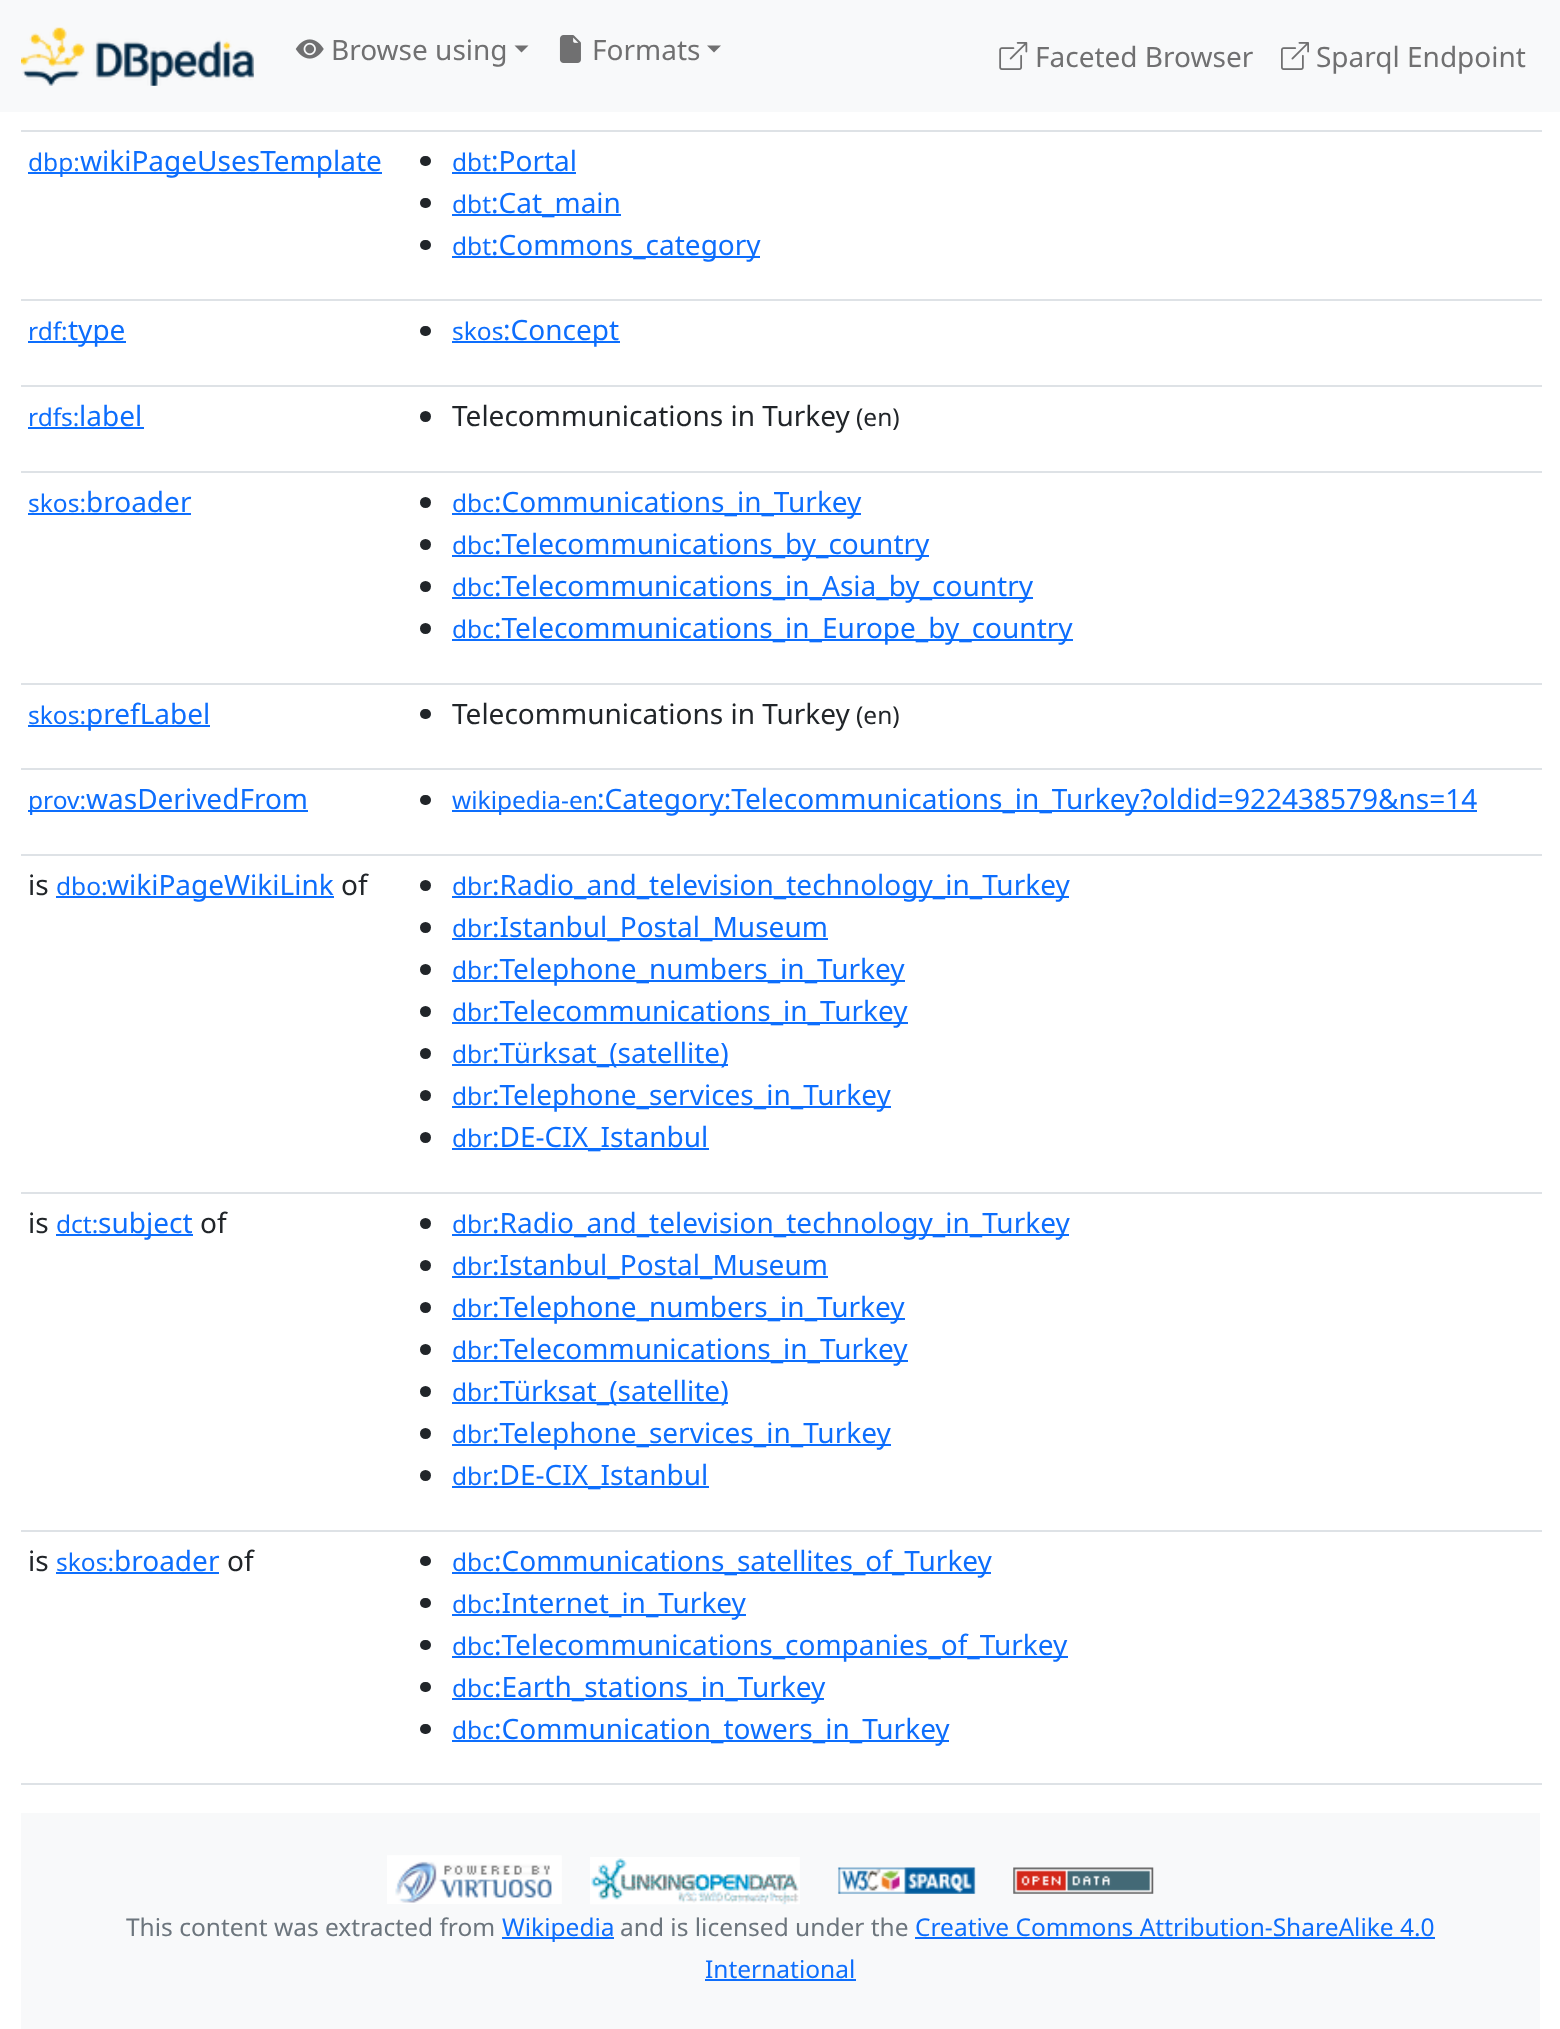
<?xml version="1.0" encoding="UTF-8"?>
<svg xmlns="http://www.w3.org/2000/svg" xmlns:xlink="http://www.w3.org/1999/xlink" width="1560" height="2029">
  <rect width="100%" height="100%" fill="#ffffff" />
  <rect width="1560" height="112" fill="#f8f9fa" />
  <image x="21" y="27" width="233" height="59" xlink:href="image1.png" />
  <image x="295" y="39" width="29" height="20" xlink:href="image2.png" />
  <path d="M 514.5 45.5 h 14 l -7 7 z" fill="#707071" />
  <image x="559" y="35" width="22" height="28" xlink:href="image3.png" />
  <path d="M 707 45.5 h 14 l -7 7 z" fill="#707071" />
  <image x="999" y="42" width="29" height="28" xlink:href="image4.png" />
  <image x="1281" y="42" width="28" height="28" xlink:href="image5.png" />
  <rect x="21" y="130" width="1521" height="2" fill="#dee2e6" />
  <rect x="28" y="172" width="354" height="2" fill="#0d6efd" />
  <rect x="21" y="299" width="1521" height="2" fill="#dee2e6" />
  <rect x="420" y="156" width="11" height="10" rx="5" fill="#212529" />
  <rect x="452" y="172" width="124" height="2" fill="#0d6efd" />
  <rect x="420" y="198" width="11" height="10" rx="5" fill="#212529" />
  <rect x="452" y="214" width="169" height="2" fill="#0d6efd" />
  <rect x="420" y="240" width="11" height="10" rx="5" fill="#212529" />
  <rect x="452" y="256" width="308" height="2" fill="#0d6efd" />
  <rect x="28" y="341" width="98" height="2" fill="#0d6efd" />
  <rect x="21" y="385" width="1521" height="2" fill="#dee2e6" />
  <rect x="420" y="326" width="11" height="10" rx="5" fill="#212529" />
  <rect x="452" y="341" width="168" height="2" fill="#0d6efd" />
  <rect x="28" y="427" width="116" height="2" fill="#0d6efd" />
  <rect x="21" y="471" width="1521" height="2" fill="#dee2e6" />
  <circle cx="425.5" cy="416.5" r="5.5" fill="#212529" />
  <rect x="28" y="513" width="163" height="2" fill="#0d6efd" />
  <rect x="21" y="683" width="1521" height="2" fill="#dee2e6" />
  <circle cx="425.5" cy="502.5" r="5.5" fill="#212529" />
  <rect x="452" y="513" width="409" height="2" fill="#0d6efd" />
  <circle cx="425.5" cy="544.5" r="5.5" fill="#212529" />
  <rect x="452" y="555" width="477" height="2" fill="#0d6efd" />
  <circle cx="425.5" cy="586.5" r="5.5" fill="#212529" />
  <rect x="452" y="597" width="581" height="2" fill="#0d6efd" />
  <circle cx="425.5" cy="628.5" r="5.5" fill="#212529" />
  <rect x="452" y="639" width="621" height="2" fill="#0d6efd" />
  <rect x="28" y="725" width="182" height="2" fill="#0d6efd" />
  <rect x="21" y="768" width="1521" height="2" fill="#dee2e6" />
  <rect x="420" y="709" width="11" height="10" rx="5" fill="#212529" />
  <rect x="28" y="810" width="280" height="2" fill="#0d6efd" />
  <rect x="21" y="854" width="1521" height="2" fill="#dee2e6" />
  <rect x="420" y="795" width="11" height="10" rx="5" fill="#212529" />
  <rect x="452" y="810" width="1025" height="2" fill="#0d6efd" />
  <rect x="56" y="896" width="278" height="2" fill="#0d6efd" />
  <rect x="21" y="1192" width="1521" height="2" fill="#dee2e6" />
  <circle cx="425.5" cy="885.5" r="5.5" fill="#212529" />
  <rect x="452" y="896" width="617" height="2" fill="#0d6efd" />
  <circle cx="425.5" cy="927.5" r="5.5" fill="#212529" />
  <rect x="452" y="938" width="376" height="2" fill="#0d6efd" />
  <circle cx="425.5" cy="969.5" r="5.5" fill="#212529" />
  <rect x="452" y="980" width="453" height="2" fill="#0d6efd" />
  <circle cx="425.5" cy="1011.5" r="5.5" fill="#212529" />
  <rect x="452" y="1022" width="456" height="2" fill="#0d6efd" />
  <circle cx="425.5" cy="1053.5" r="5.5" fill="#212529" />
  <rect x="452" y="1064" width="276" height="2" fill="#0d6efd" />
  <circle cx="425.5" cy="1095.5" r="5.5" fill="#212529" />
  <rect x="452" y="1106" width="439" height="2" fill="#0d6efd" />
  <circle cx="425.5" cy="1137.5" r="5.5" fill="#212529" />
  <rect x="452" y="1148" width="257" height="2" fill="#0d6efd" />
  <rect x="56" y="1234" width="137" height="2" fill="#0d6efd" />
  <rect x="21" y="1530" width="1521" height="2" fill="#dee2e6" />
  <circle cx="425.5" cy="1223.5" r="5.5" fill="#212529" />
  <rect x="452" y="1234" width="617" height="2" fill="#0d6efd" />
  <circle cx="425.5" cy="1265.5" r="5.5" fill="#212529" />
  <rect x="452" y="1276" width="376" height="2" fill="#0d6efd" />
  <circle cx="425.5" cy="1307.5" r="5.5" fill="#212529" />
  <rect x="452" y="1318" width="453" height="2" fill="#0d6efd" />
  <circle cx="425.5" cy="1349.5" r="5.5" fill="#212529" />
  <rect x="452" y="1360" width="456" height="2" fill="#0d6efd" />
  <circle cx="425.5" cy="1391.5" r="5.5" fill="#212529" />
  <rect x="452" y="1402" width="276" height="2" fill="#0d6efd" />
  <circle cx="425.5" cy="1433.5" r="5.5" fill="#212529" />
  <rect x="452" y="1444" width="439" height="2" fill="#0d6efd" />
  <circle cx="425.5" cy="1475.5" r="5.5" fill="#212529" />
  <rect x="452" y="1486" width="257" height="2" fill="#0d6efd" />
  <rect x="56" y="1572" width="163" height="2" fill="#0d6efd" />
  <rect x="21" y="1783" width="1521" height="2" fill="#dee2e6" />
  <rect x="420" y="1556" width="11" height="10" rx="5" fill="#212529" />
  <rect x="452" y="1572" width="539" height="2" fill="#0d6efd" />
  <rect x="420" y="1598" width="11" height="10" rx="5" fill="#212529" />
  <rect x="452" y="1614" width="294" height="2" fill="#0d6efd" />
  <rect x="420" y="1640" width="11" height="10" rx="5" fill="#212529" />
  <rect x="452" y="1656" width="616" height="2" fill="#0d6efd" />
  <rect x="420" y="1682" width="11" height="10" rx="5" fill="#212529" />
  <rect x="452" y="1698" width="372" height="2" fill="#0d6efd" />
  <rect x="420" y="1724" width="11" height="10" rx="5" fill="#212529" />
  <rect x="452" y="1740" width="497" height="2" fill="#0d6efd" />
  <rect x="21" y="1813" width="1519" height="216" fill="#f8f9fa" />
  <image x="387" y="1855" width="175" height="49" xlink:href="image6.png" />
  <image x="590" y="1857" width="210" height="48" xlink:href="image7.png" />
  <image x="837" y="1867" width="139" height="27" xlink:href="image8.png" />
  <image x="1013" y="1867" width="141" height="27" xlink:href="image9.png" />
  <rect x="502" y="1937" width="112" height="2" fill="#0d6efd" />
  <rect x="915" y="1937" width="520" height="2" fill="#0d6efd" />
  <rect x="705" y="1979" width="151" height="2" fill="#0d6efd" />
  <text x="331" y="60" style="font-family: Noto Sans; font-size: 28px; fill: #707071">Browse using</text>
  <text x="592" y="60" style="font-family: Noto Sans; font-size: 28px; fill: #707071">Formats</text>
  <text x="1035" y="67" style="font-family: Noto Sans; font-size: 28px; fill: #707071">Faceted Browser</text>
  <text x="1316" y="67" style="font-family: Noto Sans; font-size: 28px; fill: #707071">Sparql Endpoint</text>
  <text x="28" y="171" style="font-family: Noto Sans; font-size: 24.5px; fill: #0d6efd">dbp:</text>
  <text x="80" y="171" style="font-family: Noto Sans; font-size: 28px; fill: #0d6efd">wikiPageUsesTemplate</text>
  <text x="452" y="171" style="font-family: Noto Sans; font-size: 24.5px; fill: #0d6efd">dbt</text>
  <text x="491" y="171" style="font-family: Noto Sans; font-size: 28px; fill: #0d6efd">:Portal</text>
  <text x="452" y="213" style="font-family: Noto Sans; font-size: 24.5px; fill: #0d6efd">dbt</text>
  <text x="491" y="213" style="font-family: Noto Sans; font-size: 28px; fill: #0d6efd">:Cat_main</text>
  <text x="452" y="255" style="font-family: Noto Sans; font-size: 24.5px; fill: #0d6efd">dbt</text>
  <text x="491" y="255" style="font-family: Noto Sans; font-size: 28px; fill: #0d6efd">:Commons_category</text>
  <text x="28" y="340" style="font-family: Noto Sans; font-size: 24.5px; fill: #0d6efd">rdf:</text>
  <text x="68" y="340" style="font-family: Noto Sans; font-size: 28px; fill: #0d6efd">type</text>
  <text x="452" y="340" style="font-family: Noto Sans; font-size: 24.5px; fill: #0d6efd">skos</text>
  <text x="503" y="340" style="font-family: Noto Sans; font-size: 28px; fill: #0d6efd">:Concept</text>
  <text x="28" y="426" style="font-family: Noto Sans; font-size: 24.5px; fill: #0d6efd">rdfs:</text>
  <text x="79" y="426" style="font-family: Noto Sans; font-size: 28px; fill: #0d6efd">label</text>
  <text x="452" y="426" style="font-family: Noto Sans; font-size: 28px; fill: #212529">Telecommunications in Turkey</text>
  <text x="856" y="426" style="font-family: Noto Sans; font-size: 24.5px; fill: #212529">(en)</text>
  <text x="28" y="512" style="font-family: Noto Sans; font-size: 24.5px; fill: #0d6efd">skos:</text>
  <text x="86" y="512" style="font-family: Noto Sans; font-size: 28px; fill: #0d6efd">broader</text>
  <text x="452" y="512" style="font-family: Noto Sans; font-size: 24.5px; fill: #0d6efd">dbc</text>
  <text x="494" y="512" style="font-family: Noto Sans; font-size: 28px; fill: #0d6efd">:Communications_in_Turkey</text>
  <text x="452" y="554" style="font-family: Noto Sans; font-size: 24.5px; fill: #0d6efd">dbc</text>
  <text x="494" y="554" style="font-family: Noto Sans; font-size: 28px; fill: #0d6efd">:Telecommunications_by_country</text>
  <text x="452" y="596" style="font-family: Noto Sans; font-size: 24.5px; fill: #0d6efd">dbc</text>
  <text x="494" y="596" style="font-family: Noto Sans; font-size: 28px; fill: #0d6efd">:Telecommunications_in_Asia_by_country</text>
  <text x="452" y="638" style="font-family: Noto Sans; font-size: 24.5px; fill: #0d6efd">dbc</text>
  <text x="494" y="638" style="font-family: Noto Sans; font-size: 28px; fill: #0d6efd">:Telecommunications_in_Europe_by_country</text>
  <text x="28" y="724" style="font-family: Noto Sans; font-size: 24.5px; fill: #0d6efd">skos:</text>
  <text x="86" y="724" style="font-family: Noto Sans; font-size: 28px; fill: #0d6efd">prefLabel</text>
  <text x="452" y="724" style="font-family: Noto Sans; font-size: 28px; fill: #212529">Telecommunications in Turkey</text>
  <text x="856" y="724" style="font-family: Noto Sans; font-size: 24.5px; fill: #212529">(en)</text>
  <text x="28" y="809" style="font-family: Noto Sans; font-size: 24.5px; fill: #0d6efd">prov:</text>
  <text x="86" y="809" style="font-family: Noto Sans; font-size: 28px; fill: #0d6efd">wasDerivedFrom</text>
  <text x="452" y="809" style="font-family: Noto Sans; font-size: 24.5px; fill: #0d6efd">wikipedia-en</text>
  <text x="597" y="809" style="font-family: Noto Sans; font-size: 28px; fill: #0d6efd">:Category:Telecommunications_in_Turkey?oldid=922438579&amp;ns=14</text>
  <text x="28" y="895" style="font-family: Noto Sans; font-size: 28px; fill: #212529">is</text>
  <text x="56" y="895" style="font-family: Noto Sans; font-size: 24.5px; fill: #0d6efd">dbo:</text>
  <text x="107" y="895" style="font-family: Noto Sans; font-size: 28px; fill: #0d6efd">wikiPageWikiLink</text>
  <text x="341" y="895" style="font-family: Noto Sans; font-size: 28px; fill: #212529">of</text>
  <text x="452" y="895" style="font-family: Noto Sans; font-size: 24.5px; fill: #0d6efd">dbr</text>
  <text x="492" y="895" style="font-family: Noto Sans; font-size: 28px; fill: #0d6efd">:Radio_and_television_technology_in_Turkey</text>
  <text x="452" y="937" style="font-family: Noto Sans; font-size: 24.5px; fill: #0d6efd">dbr</text>
  <text x="492" y="937" style="font-family: Noto Sans; font-size: 28px; fill: #0d6efd">:Istanbul_Postal_Museum</text>
  <text x="452" y="979" style="font-family: Noto Sans; font-size: 24.5px; fill: #0d6efd">dbr</text>
  <text x="492" y="979" style="font-family: Noto Sans; font-size: 28px; fill: #0d6efd">:Telephone_numbers_in_Turkey</text>
  <text x="452" y="1021" style="font-family: Noto Sans; font-size: 24.5px; fill: #0d6efd">dbr</text>
  <text x="492" y="1021" style="font-family: Noto Sans; font-size: 28px; fill: #0d6efd">:Telecommunications_in_Turkey</text>
  <text x="452" y="1063" style="font-family: Noto Sans; font-size: 24.5px; fill: #0d6efd">dbr</text>
  <text x="492" y="1063" style="font-family: Noto Sans; font-size: 28px; fill: #0d6efd">:Türksat_(satellite)</text>
  <text x="452" y="1105" style="font-family: Noto Sans; font-size: 24.5px; fill: #0d6efd">dbr</text>
  <text x="492" y="1105" style="font-family: Noto Sans; font-size: 28px; fill: #0d6efd">:Telephone_services_in_Turkey</text>
  <text x="452" y="1147" style="font-family: Noto Sans; font-size: 24.5px; fill: #0d6efd">dbr</text>
  <text x="492" y="1147" style="font-family: Noto Sans; font-size: 28px; fill: #0d6efd">:DE-CIX_Istanbul</text>
  <text x="28" y="1233" style="font-family: Noto Sans; font-size: 28px; fill: #212529">is</text>
  <text x="56" y="1233" style="font-family: Noto Sans; font-size: 24.5px; fill: #0d6efd">dct:</text>
  <text x="98" y="1233" style="font-family: Noto Sans; font-size: 28px; fill: #0d6efd">subject</text>
  <text x="200" y="1233" style="font-family: Noto Sans; font-size: 28px; fill: #212529">of</text>
  <text x="452" y="1233" style="font-family: Noto Sans; font-size: 24.5px; fill: #0d6efd">dbr</text>
  <text x="492" y="1233" style="font-family: Noto Sans; font-size: 28px; fill: #0d6efd">:Radio_and_television_technology_in_Turkey</text>
  <text x="452" y="1275" style="font-family: Noto Sans; font-size: 24.5px; fill: #0d6efd">dbr</text>
  <text x="492" y="1275" style="font-family: Noto Sans; font-size: 28px; fill: #0d6efd">:Istanbul_Postal_Museum</text>
  <text x="452" y="1317" style="font-family: Noto Sans; font-size: 24.5px; fill: #0d6efd">dbr</text>
  <text x="492" y="1317" style="font-family: Noto Sans; font-size: 28px; fill: #0d6efd">:Telephone_numbers_in_Turkey</text>
  <text x="452" y="1359" style="font-family: Noto Sans; font-size: 24.5px; fill: #0d6efd">dbr</text>
  <text x="492" y="1359" style="font-family: Noto Sans; font-size: 28px; fill: #0d6efd">:Telecommunications_in_Turkey</text>
  <text x="452" y="1401" style="font-family: Noto Sans; font-size: 24.5px; fill: #0d6efd">dbr</text>
  <text x="492" y="1401" style="font-family: Noto Sans; font-size: 28px; fill: #0d6efd">:Türksat_(satellite)</text>
  <text x="452" y="1443" style="font-family: Noto Sans; font-size: 24.5px; fill: #0d6efd">dbr</text>
  <text x="492" y="1443" style="font-family: Noto Sans; font-size: 28px; fill: #0d6efd">:Telephone_services_in_Turkey</text>
  <text x="452" y="1485" style="font-family: Noto Sans; font-size: 24.5px; fill: #0d6efd">dbr</text>
  <text x="492" y="1485" style="font-family: Noto Sans; font-size: 28px; fill: #0d6efd">:DE-CIX_Istanbul</text>
  <text x="28" y="1571" style="font-family: Noto Sans; font-size: 28px; fill: #212529">is</text>
  <text x="56" y="1571" style="font-family: Noto Sans; font-size: 24.5px; fill: #0d6efd">skos:</text>
  <text x="114" y="1571" style="font-family: Noto Sans; font-size: 28px; fill: #0d6efd">broader</text>
  <text x="227" y="1571" style="font-family: Noto Sans; font-size: 28px; fill: #212529">of</text>
  <text x="452" y="1571" style="font-family: Noto Sans; font-size: 24.5px; fill: #0d6efd">dbc</text>
  <text x="494" y="1571" style="font-family: Noto Sans; font-size: 28px; fill: #0d6efd">:Communications_satellites_of_Turkey</text>
  <text x="452" y="1613" style="font-family: Noto Sans; font-size: 24.5px; fill: #0d6efd">dbc</text>
  <text x="494" y="1613" style="font-family: Noto Sans; font-size: 28px; fill: #0d6efd">:Internet_in_Turkey</text>
  <text x="452" y="1655" style="font-family: Noto Sans; font-size: 24.5px; fill: #0d6efd">dbc</text>
  <text x="494" y="1655" style="font-family: Noto Sans; font-size: 28px; fill: #0d6efd">:Telecommunications_companies_of_Turkey</text>
  <text x="452" y="1697" style="font-family: Noto Sans; font-size: 24.5px; fill: #0d6efd">dbc</text>
  <text x="494" y="1697" style="font-family: Noto Sans; font-size: 28px; fill: #0d6efd">:Earth_stations_in_Turkey</text>
  <text x="452" y="1739" style="font-family: Noto Sans; font-size: 24.5px; fill: #0d6efd">dbc</text>
  <text x="494" y="1739" style="font-family: Noto Sans; font-size: 28px; fill: #0d6efd">:Communication_towers_in_Turkey</text>
  <text x="126" y="1936" style="font-family: Noto Sans; font-size: 24.5px; fill: #6c757d">This content was extracted from</text>
  <text x="502" y="1936" style="font-family: Noto Sans; font-size: 24.5px; fill: #0d6efd">Wikipedia</text>
  <text x="620" y="1936" style="font-family: Noto Sans; font-size: 24.5px; fill: #6c757d">and is licensed under the</text>
  <text x="915" y="1936" style="font-family: Noto Sans; font-size: 24.5px; fill: #0d6efd">Creative Commons Attribution-ShareAlike 4.0</text>
  <text x="705" y="1978" style="font-family: Noto Sans; font-size: 24.5px; fill: #0d6efd">International</text>
</svg>
